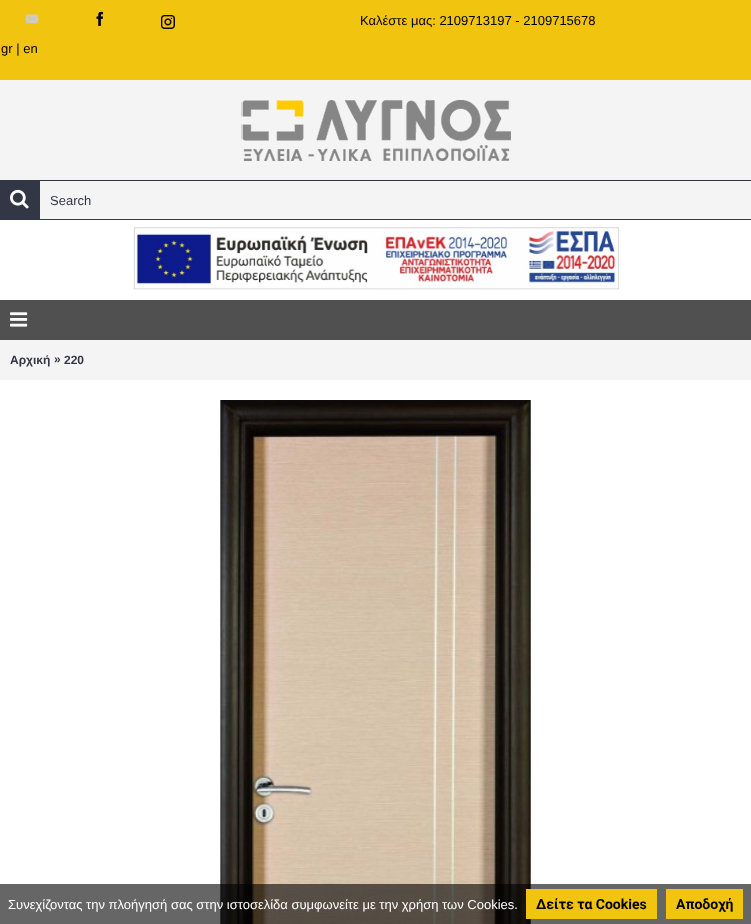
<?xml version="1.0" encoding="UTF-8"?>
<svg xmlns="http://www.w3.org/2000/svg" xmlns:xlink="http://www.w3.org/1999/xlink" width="751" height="924">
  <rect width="100%" height="100%" fill="#ffffff" />
  <rect width="751" height="80" fill="#f1c40f" />
  <image x="25" y="14" width="14" height="10" xlink:href="image1.png" />
  <image x="96" y="11" width="8" height="15" xlink:href="image2.png" />
  <image x="161" y="15" width="14" height="14" xlink:href="image3.png" />
  <rect y="80" width="751" height="100" fill="#f4f4f4" />
  <image x="241" y="100" width="270" height="61" xlink:href="image4.png" />
  <rect y="180" width="40" height="40" fill="#333745" />
  <image x="10" y="189" width="19" height="20" xlink:href="image5.png" />
  <rect x="40" y="181" width="711" height="38" fill="#f4f4f4" />
  <rect x="40" y="180" width="711" height="1" fill="#333745" />
  <rect x="40" y="219" width="711" height="1" fill="#333745" />
  <image x="133" y="227" width="486" height="63" xlink:href="image6.png" />
  <rect y="300" width="751" height="40" fill="#505050" />
  <image x="10" y="312" width="18" height="15" xlink:href="image7.png" />
  <rect y="340" width="751" height="40" fill="#f4f4f4" />
  <image x="220" y="400" width="312" height="524" xlink:href="image8.png" />
  <rect y="884" width="751" height="40" fill="#000000" fill-opacity="0.6" />
  <rect x="526" y="889" width="131" height="30" fill="#f1c40f" />
  <rect x="666" y="889" width="77" height="30" fill="#f1c40f" />
  <text x="360" y="25" style="font-family: Liberation Sans; font-size: 13px; fill: #000000">Καλέστε μας: 2109713197 - 2109715678</text>
  <text x="1" y="53" style="font-family: Liberation Sans; font-size: 13px; fill: #000000">gr | en</text>
  <text x="50" y="205" style="font-family: Liberation Sans; font-size: 13px; fill: #333745">Search</text>
  <text x="10" y="364" style="font-family: Liberation Sans; font-size: 12px; font-weight: bold; fill: #333745">Αρχική</text>
  <text x="54" y="363" style="font-family: Liberation Sans; font-size: 12px; font-weight: bold; fill: #333745">»</text>
  <text x="64" y="364" style="font-family: Liberation Sans; font-size: 12px; font-weight: bold; fill: #333745">220</text>
  <text x="8" y="909" style="font-family: Liberation Sans; font-size: 13px; fill: #ffffff">Συνεχίζοντας την πλοήγησή σας στην ιστοσελίδα συμφωνείτε με την χρήση των Cookies.</text>
  <text x="536" y="909" style="font-family: Roboto; font-size: 14px; font-weight: bold; fill: #000000">Δείτε τα Cookies</text>
  <text x="676" y="909" style="font-family: Roboto; font-size: 14px; font-weight: bold; fill: #000000">Αποδοχή</text>
</svg>
